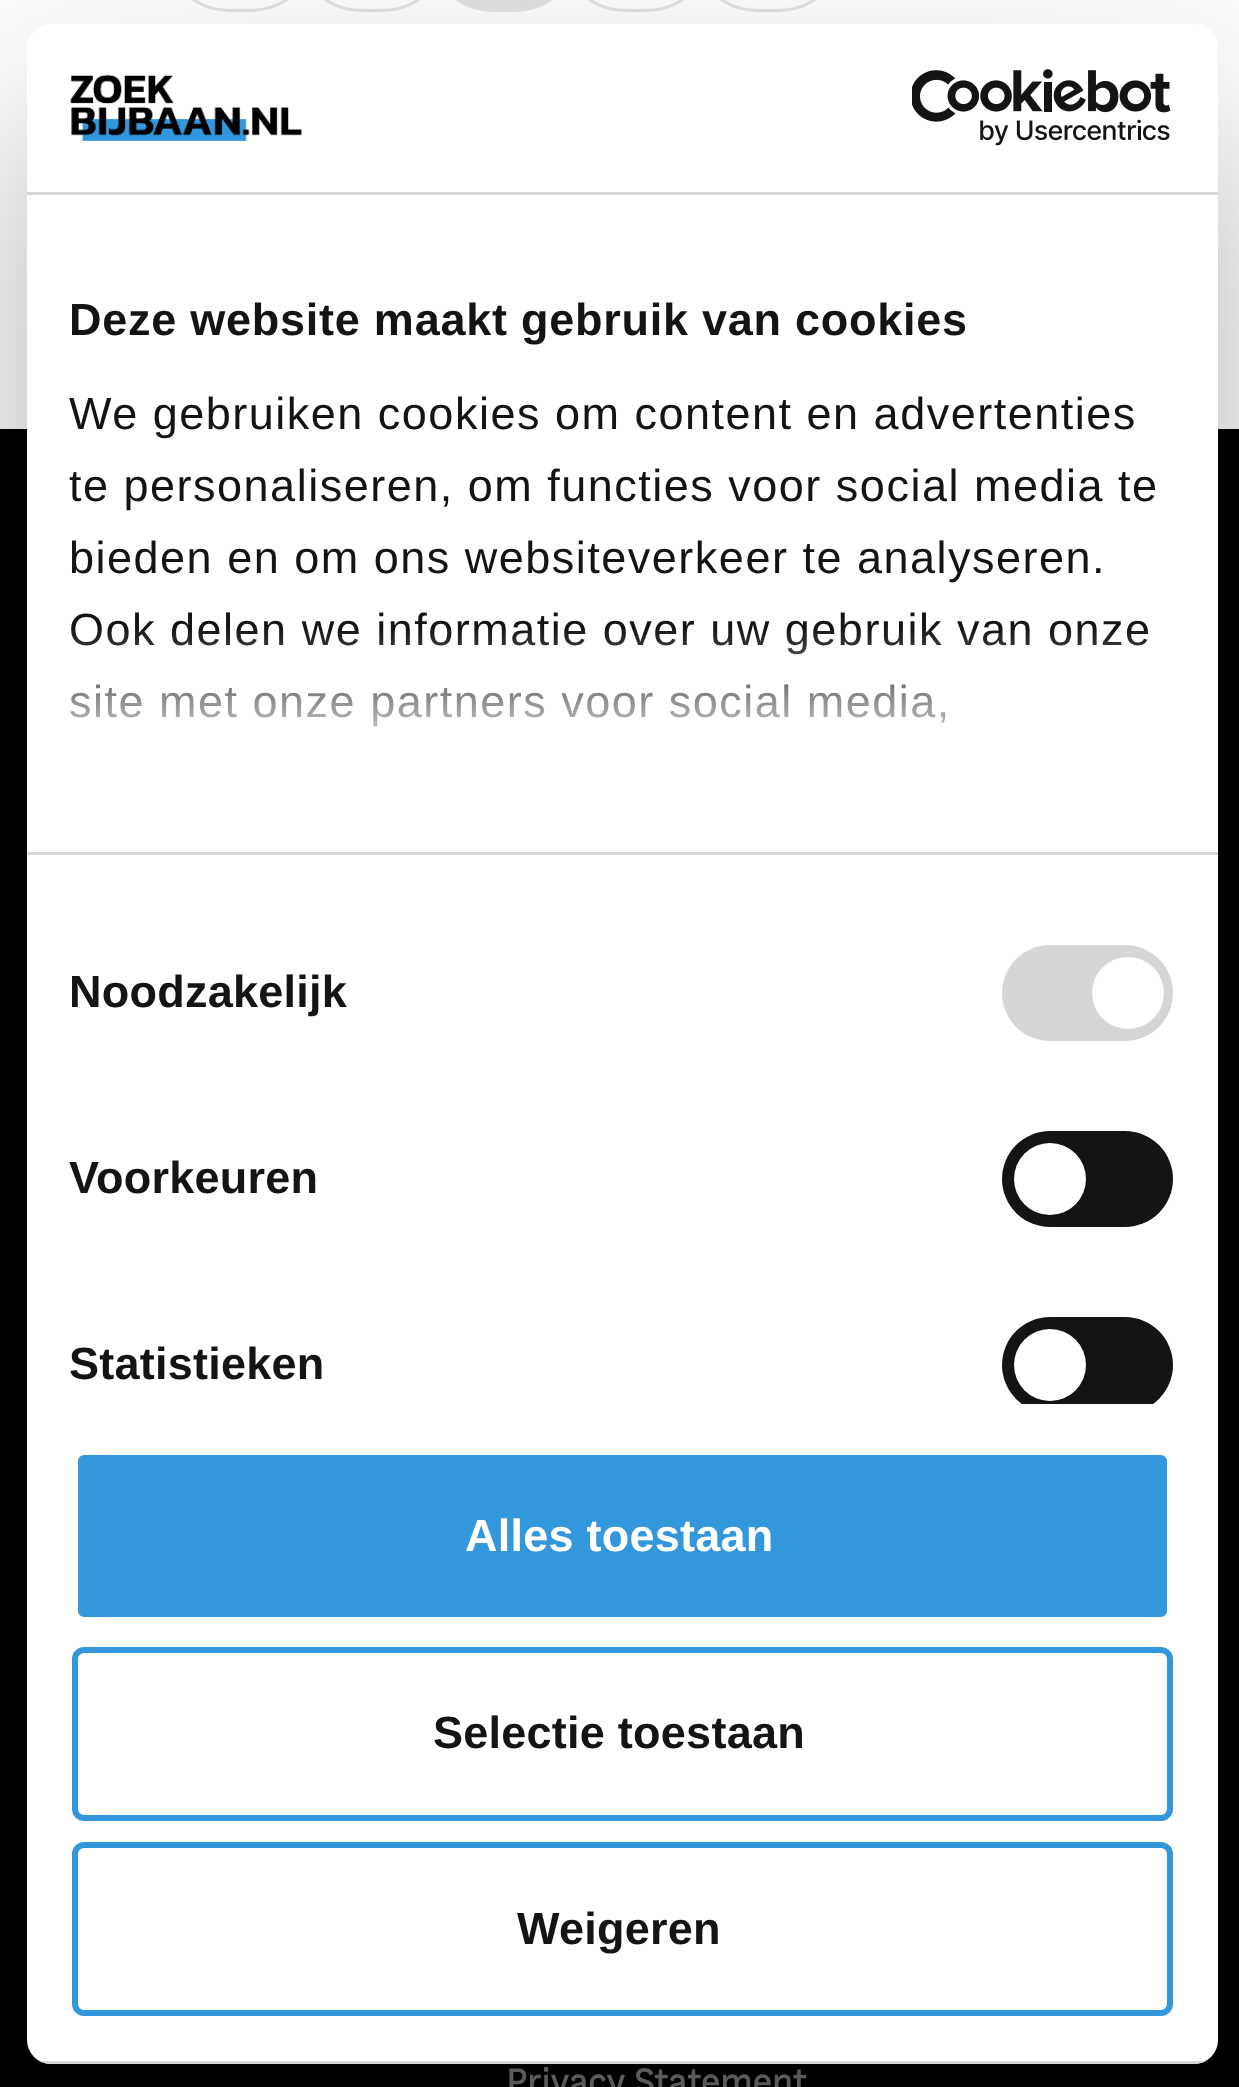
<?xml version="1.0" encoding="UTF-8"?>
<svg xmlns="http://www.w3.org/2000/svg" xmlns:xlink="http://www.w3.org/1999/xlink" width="1239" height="2087">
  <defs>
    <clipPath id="clip1"><path d="M 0 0 h 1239 v 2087 h -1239 z m 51 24 h 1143 c 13.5 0 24 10.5 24 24 v 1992 c 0 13.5 -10.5 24 -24 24 h -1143 c -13.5 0 -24 -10.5 -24 -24 v -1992 c 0 -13.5 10.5 -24 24 -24 z" clip-rule="evenodd" /></clipPath>
    <clipPath id="clip2"><rect x="27" y="195" width="1191" height="1209" /></clipPath>
    <clipPath id="clip3"><rect x="27" y="24" width="1191" height="2040" rx="24" /></clipPath>
    <linearGradient id="g1" gradientUnits="userSpaceOnUse" x1="602" y1="852" x2="602" y2="627"><stop offset="0" stop-color="#ffffff" /><stop offset="0.5" stop-color="#ffffff" stop-opacity="0.8" /><stop offset="1" stop-color="#ffffff" stop-opacity="0" /></linearGradient>
  </defs>
  <rect width="100%" height="100%" fill="#ffffff" />
  <rect x="181.5" y="-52.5" width="117" height="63" rx="49.5" fill="none" stroke="#e4e4e7" stroke-width="3" />
  <rect x="313.5" y="-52.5" width="117" height="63" rx="49.5" fill="none" stroke="#e4e4e7" stroke-width="3" />
  <rect x="445.5" y="-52.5" width="117" height="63" rx="49.5" fill="#e4e4e7" stroke="#e4e4e7" stroke-width="3" />
  <rect x="577.5" y="-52.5" width="117" height="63" rx="49.5" fill="none" stroke="#e4e4e7" stroke-width="3" />
  <rect x="709.5" y="-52.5" width="117" height="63" rx="49.5" fill="none" stroke="#e4e4e7" stroke-width="3" />
  <rect y="429" width="1239" height="1658" fill="#000000" />
  <g clip-path="url(#clip1)">
    <rect x="27" y="120" width="1191" height="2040" rx="24" fill="#000000" fill-opacity="0.3" filter="blur(102px)" />
  </g>
  <rect x="27" y="24" width="1191" height="2040" rx="24" fill="#ffffff" />
  <rect x="27" y="192" width="1191" height="3" fill="#d6d6d6" />
  <image x="70" y="74" width="233" height="67" xlink:href="image1.png" />
  <image x="912" y="69" width="259" height="77" xlink:href="image2.png" />
  <rect x="27" y="852" width="1191" height="3" fill="#d6d6d6" />
  <rect x="1002" y="945" width="171" height="96" rx="48" fill="#d6d6d6" />
  <circle cx="1128" cy="993" r="36" fill="#ffffff" />
  <rect x="1002" y="1131" width="171" height="96" rx="48" fill="#141414" />
  <circle cx="1050" cy="1179" r="36" fill="#ffffff" />
  <g clip-path="url(#clip2)">
    <rect x="1002" y="1317" width="171" height="96" rx="48" fill="#141414" />
  </g>
  <circle cx="1050" cy="1365" r="36" fill="#ffffff" />
  <g clip-path="url(#clip3)">
    <rect x="39" y="2061" width="1167" height="3" fill="#d6d6d6" />
  </g>
  <rect x="75" y="1452" width="1095" height="168" rx="9" fill="#3297db" stroke="#ffffff" stroke-width="6" />
  <rect x="75" y="1650" width="1095" height="168" rx="9" fill="none" stroke="#3297db" stroke-width="6" />
  <rect x="75" y="1845" width="1095" height="168" rx="9" fill="none" stroke="#3297db" stroke-width="6" />
  <text x="69" y="335" style="font-family: Liberation Sans; font-size: 45px; font-weight: bold; letter-spacing: 0.75px; fill: #141414">Deze website maakt gebruik van cookies</text>
  <text x="69" y="429" style="font-family: Liberation Sans; font-size: 45px; letter-spacing: 1.5px; fill: #141414">We gebruiken cookies om content en advertenties</text>
  <text x="69" y="501" style="font-family: Liberation Sans; font-size: 45px; letter-spacing: 1.5px; fill: #141414">te personaliseren, om functies voor social media te</text>
  <text x="69" y="573" style="font-family: Liberation Sans; font-size: 45px; letter-spacing: 1.5px; fill: #141414">bieden en om ons websiteverkeer te analyseren.</text>
  <text x="69" y="645" style="font-family: Liberation Sans; font-size: 45px; letter-spacing: 1.5px; fill: #141414">Ook delen we informatie over uw gebruik van onze</text>
  <text x="69" y="717" style="font-family: Liberation Sans; font-size: 45px; letter-spacing: 1.5px; fill: #141414">site met onze partners voor social media,</text>
  <rect x="70" y="630" width="1078" height="97" fill="url(#g1)" />
  <text x="69" y="1007" style="font-family: Liberation Sans; font-size: 45px; font-weight: bold; letter-spacing: 0.25px; fill: #141414">Noodzakelijk</text>
  <text x="69" y="1193" style="font-family: Liberation Sans; font-size: 45px; font-weight: bold; letter-spacing: 0.25px; fill: #141414">Voorkeuren</text>
  <text x="69" y="1379" style="font-family: Liberation Sans; font-size: 45px; font-weight: bold; letter-spacing: 0.25px; fill: #141414">Statistieken</text>
  <text x="465" y="1551" style="font-family: Liberation Sans; font-size: 45px; font-weight: bold; letter-spacing: 0.25px; fill: #ffffff">Alles toestaan</text>
  <text x="433" y="1748" style="font-family: Liberation Sans; font-size: 45px; font-weight: bold; letter-spacing: 0.25px; fill: #141414">Selectie toestaan</text>
  <text x="517" y="1944" style="font-family: Liberation Sans; font-size: 45px; font-weight: bold; letter-spacing: 0.25px; fill: #141414">Weigeren</text>
  <text x="506" y="2094" style="font-family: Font; font-size: 36px; font-weight: bold; fill: #5a5a5a">Privacy Statement</text>
</svg>
